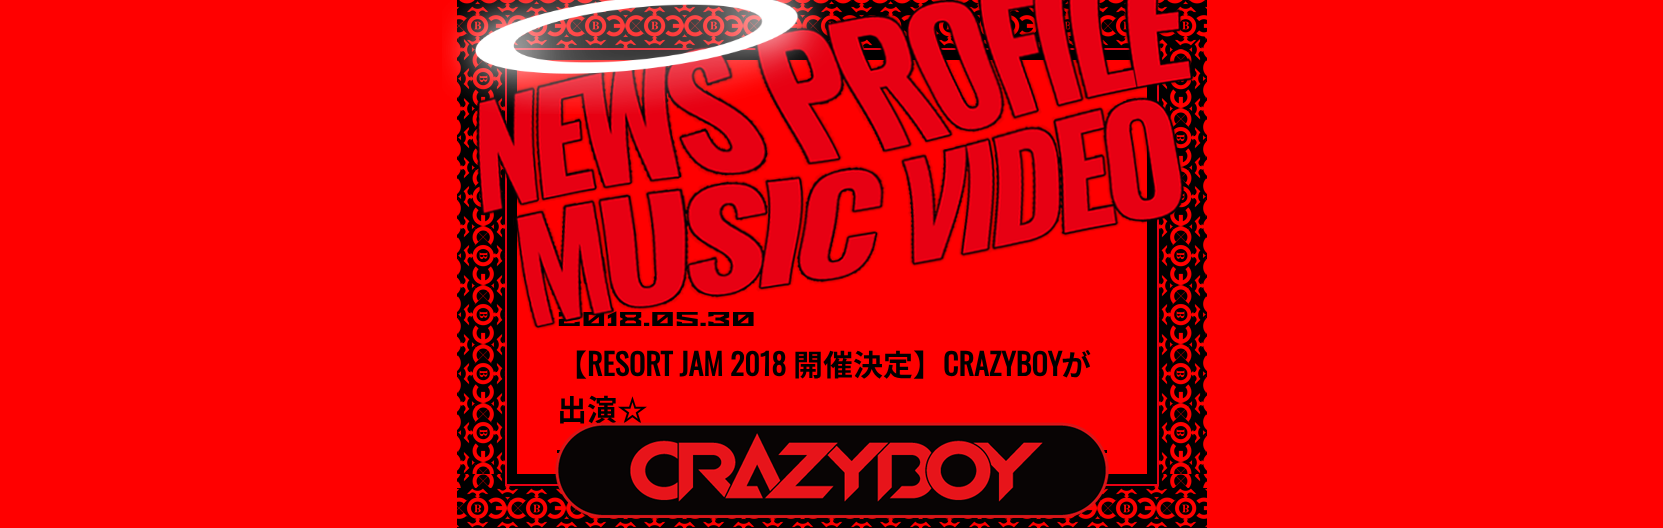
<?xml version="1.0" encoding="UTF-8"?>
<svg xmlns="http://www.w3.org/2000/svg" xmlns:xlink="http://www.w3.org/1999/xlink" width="1663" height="528">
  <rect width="100%" height="100%" fill="#ff0000" />
  <rect x="557" y="450" width="550" height="3" fill="#000000" />
  <text x="557" y="326" style="font-family: Stalinist One; font-size: 20px; fill: #000000">2018.05.30</text>
  <text x="557" y="376" style="font-family: Noto Sans JP; font-size: 30px; font-weight: bold; fill: #000000">【</text>
  <text x="587" y="376" style="font-family: Oswald; font-size: 30px; font-weight: bold; fill: #000000">RESORT JAM 2018</text>
  <text x="793" y="376" style="font-family: Noto Sans JP; font-size: 30px; font-weight: bold; fill: #000000">開催決定】</text>
  <text x="943" y="376" style="font-family: Oswald; font-size: 30px; font-weight: bold; fill: #000000">CRAZYBOY</text>
  <text x="1061" y="376" style="font-family: Noto Sans JP; font-size: 30px; font-weight: bold; fill: #000000">が</text>
  <text x="557" y="421" style="font-family: Noto Sans JP; font-size: 30px; font-weight: bold; fill: #000000">出演</text>
  <text x="617" y="421" style="font-family: WenQuanYi Zen Hei; font-size: 30px; font-weight: bold; fill: #000000">☆</text>
  <image x="457" y="0" width="750" height="528" xlink:href="image3.png" />
  <image x="475" y="0" width="719" height="330" xlink:href="image2.png" />
  <image x="442" y="0" width="389" height="114" xlink:href="image1.png" />
  <image x="555" y="422" width="554" height="96" xlink:href="image4.png" />
</svg>
